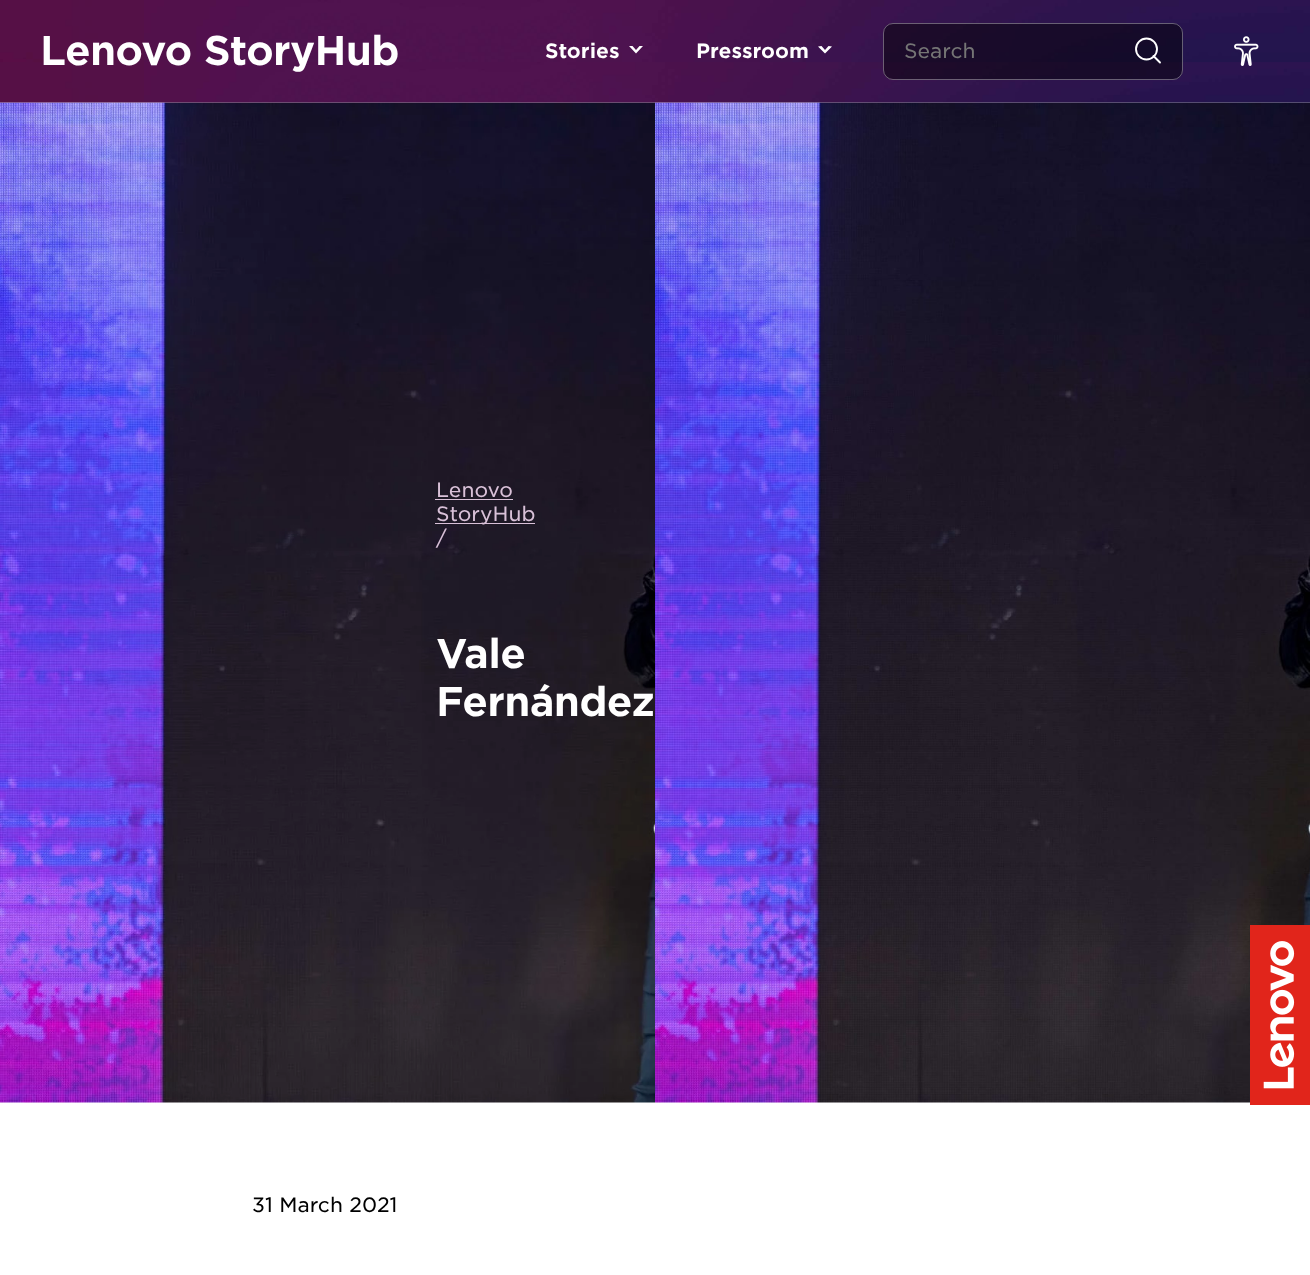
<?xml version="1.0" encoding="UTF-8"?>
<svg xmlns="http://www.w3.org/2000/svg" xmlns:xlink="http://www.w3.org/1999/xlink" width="1310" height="1275">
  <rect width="100%" height="100%" fill="#ffffff" />
  <image x="0" y="102" width="655" height="1001" xlink:href="image3.png" />
  <image x="655" y="102" width="655" height="1001" xlink:href="image4.png" />
  <image x="0" y="0" width="1310" height="103" xlink:href="image1.png" />
  <path d="M 643 46 l -7 7.5 v -3.5 l 3.5 -4 z m -7 7.5 l -7 -7.5 h 3.5 l 3.5 4 z" fill="#ffffff" />
  <path d="M 832 46.5 l -7 7 v -3.5 l 3.5 -4 z m -7 7 l -7 -7 l 3.5 -0.5 l 3.5 4 z" fill="#ffffff" />
  <rect x="883" y="23" width="300" height="57" rx="10" fill="#000000" fill-opacity="0.45" />
  <rect x="883.5" y="23.5" width="299" height="56" rx="9.5" fill="none" stroke="#ffffff" stroke-opacity="0.35" />
  <circle cx="1146.5" cy="49" r="10.5" fill="none" stroke="#ffffff" stroke-width="1.9" />
  <path d="M 1160 62.5 l -6.5 -6.5" fill="none" stroke="#ffffff" stroke-width="1.9" stroke-linecap="round" stroke-linejoin="round" />
  <image x="1234" y="36" width="25" height="30" xlink:href="image2.png" />
  <rect x="435" y="499" width="78" height="1" fill="#d9c1d8" />
  <rect x="435" y="523" width="100" height="1" fill="#d9c1d8" />
  <rect x="1250" y="925" width="60" height="180" fill="#e1251b" />
  <image x="1263" y="941" width="32" height="148" xlink:href="image5.png" />
  <text x="40" y="65" style="font-family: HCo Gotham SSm; font-size: 40px; font-weight: bold; letter-spacing: -0.75px; fill: #ffffff">Lenovo StoryHub</text>
  <text x="545" y="58" style="font-family: HCo Gotham SSm; font-size: 20px; font-weight: bold; fill: #ffffff">Stories</text>
  <text x="696" y="58" style="font-family: HCo Gotham SSm; font-size: 20px; font-weight: bold; fill: #ffffff">Pressroom</text>
  <text x="904" y="58" style="font-family: HCo Gotham SSm; font-size: 20px; fill: #757575">Search</text>
  <text x="436" y="497" style="font-family: HCo Gotham SSm; font-size: 20px; fill: #d9c1d8">Lenovo</text>
  <text x="436" y="521" style="font-family: HCo Gotham SSm; font-size: 20px; fill: #d9c1d8">StoryHub</text>
  <text x="436" y="545" style="font-family: HCo Gotham SSm; font-size: 20px; fill: #d9c1d8">/</text>
  <text x="436" y="668" style="font-family: HCo Gotham SSm; font-size: 40px; font-weight: bold; letter-spacing: -0.75px; fill: #ffffff">Vale</text>
  <text x="436" y="716" style="font-family: HCo Gotham SSm; font-size: 40px; font-weight: bold; letter-spacing: -0.75px; fill: #ffffff">Fernández</text>
  <text x="252" y="1212" style="font-family: HCo Gotham SSm; font-size: 20px; fill: #000000">31 March 2021</text>
</svg>
